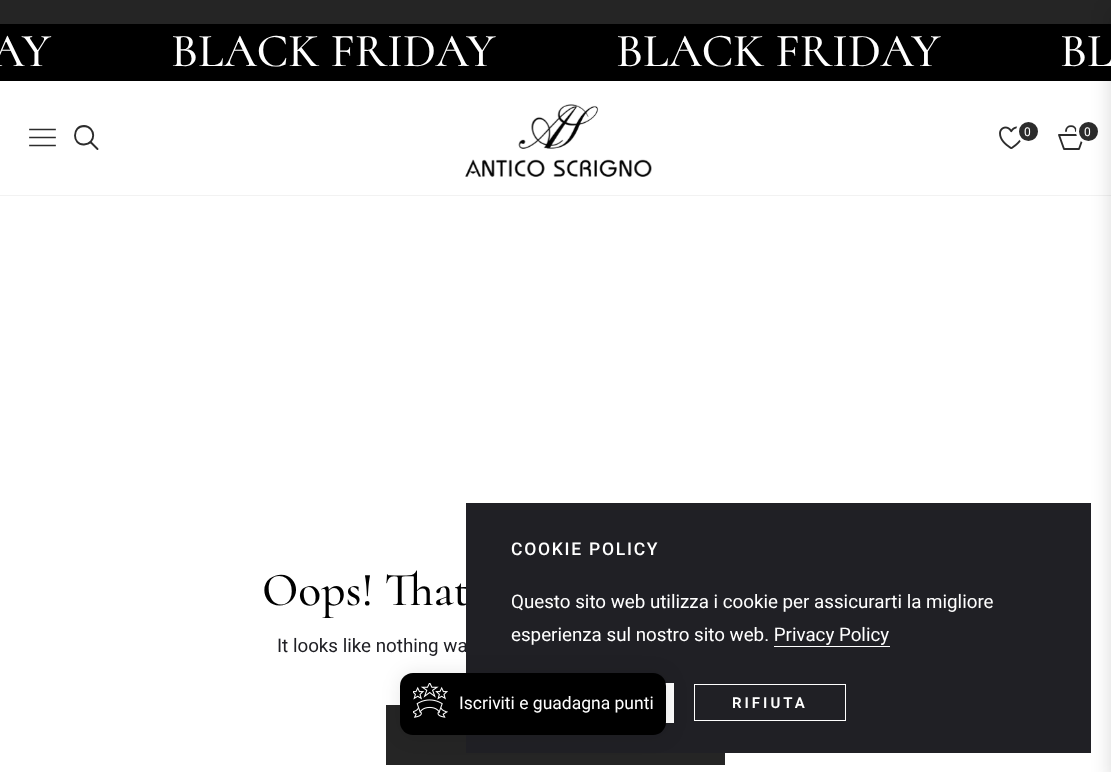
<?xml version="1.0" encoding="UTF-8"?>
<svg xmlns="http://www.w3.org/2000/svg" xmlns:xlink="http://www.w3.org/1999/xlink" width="1111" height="772">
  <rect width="100%" height="100%" fill="#ffffff" />
  <rect width="1111" height="24" fill="#252525" />
  <rect y="24" width="1111" height="57" fill="#000000" />
  <rect x="-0.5" y="80.5" width="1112" height="115" fill="none" stroke="#000000" stroke-opacity="0.05" />
  <path d="M 30 145.5 h 25 m -25 -8 h 25 m -25 -8 h 25" fill="none" stroke="#2c2c2c" stroke-width="1.7" stroke-linecap="square" />
  <path d="M 84 126 c -12 0 -12 19 0 18.5 c 12.5 -0.5 12 -18 0 -18.5 z" fill="none" stroke="#2c2c2c" stroke-width="1.9" />
  <path d="M 91 142.5 l 6.5 6.5" fill="none" stroke="#2c2c2c" stroke-width="1.9" stroke-linecap="round" />
  <image x="465" y="104" width="187" height="73" xlink:href="image1.png" />
  <image x="999" y="126" width="22" height="23" xlink:href="image2.png" />
  <circle cx="1028.5" cy="131.5" r="11" fill="#2c2c2c" stroke="#ffffff" stroke-width="3" />
  <path d="M 1059 135 h 25 l -5 14 h -15 z m 17 -4 c 0 -6.5 -10 -6.5 -10 0" fill="none" stroke="#2c2c2c" stroke-width="1.9" stroke-linecap="round" stroke-linejoin="round" />
  <circle cx="1088.5" cy="131.5" r="11" fill="#2c2c2c" stroke="#ffffff" stroke-width="3" />
  <rect x="1111" y="10" width="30" height="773" fill="#000000" fill-opacity="0.15" filter="blur(10px)" />
  <rect x="386" y="705" width="339" height="60" fill="#252525" />
  <text x="-9" y="66" style="font-family: Cormorant; font-size: 47.5px; font-weight: 500; fill: #ffffff">AY</text>
  <text x="171" y="66" style="font-family: Cormorant; font-size: 47.5px; font-weight: 500; fill: #ffffff">BLACK FRIDAY</text>
  <text x="616" y="66" style="font-family: Cormorant; font-size: 47.5px; font-weight: 500; fill: #ffffff">BLACK FRIDAY</text>
  <text x="1060" y="66" style="font-family: Cormorant; font-size: 47.5px; font-weight: 500; fill: #ffffff">BL</text>
  <text x="1024" y="136" style="font-family: Roboto; font-size: 12px; letter-spacing: 2px; fill: #ffffff">0</text>
  <text x="1084" y="136" style="font-family: Roboto; font-size: 12px; letter-spacing: 2px; fill: #ffffff">0</text>
  <text x="262" y="605" style="font-family: Cormorant; font-size: 47.5px; font-weight: 500; fill: #000000">Oops! That</text>
  <text x="277" y="652" style="font-family: Roboto; font-size: 18.75px; fill: #202025">It looks like nothing wa</text>
  <rect x="466" y="503" width="625" height="250" fill="#202025" />
  <text x="511" y="555" style="font-family: Roboto; font-size: 17.5px; font-weight: 500; letter-spacing: 1.75px; fill: #ffffff">COOKIE POLICY</text>
  <text x="511" y="608" style="font-family: Roboto; font-size: 18.75px; fill: #ffffff">Questo sito web utilizza i cookie per assicurarti la migliore</text>
  <text x="511" y="641" style="font-family: Roboto; font-size: 18.75px; fill: #ffffff">esperienza sul nostro sito web. Privacy Policy</text>
  <rect x="774" y="646" width="116" height="1" fill="#ffffff" />
  <rect x="665" y="683" width="9" height="40" fill="#ffffff" />
  <rect x="694.5" y="684.5" width="151" height="36" fill="none" stroke="#ffffff" />
  <text x="732" y="708" style="font-family: Roboto; font-size: 15px; font-weight: 600; letter-spacing: 3px; fill: #ffffff">RIFIUTA</text>
  <rect x="401" y="674" width="267" height="62" rx="13" fill="#000000" fill-opacity="0.1" filter="blur(9.5px)" />
  <rect x="400" y="673" width="266" height="62" rx="13" fill="#000000" />
  <image x="413" y="683" width="35" height="35" xlink:href="image3.png" />
  <text x="459" y="709" style="font-family: Roboto; font-size: 17.5px; fill: #ffffff">Iscriviti e guadagna punti</text>
</svg>
